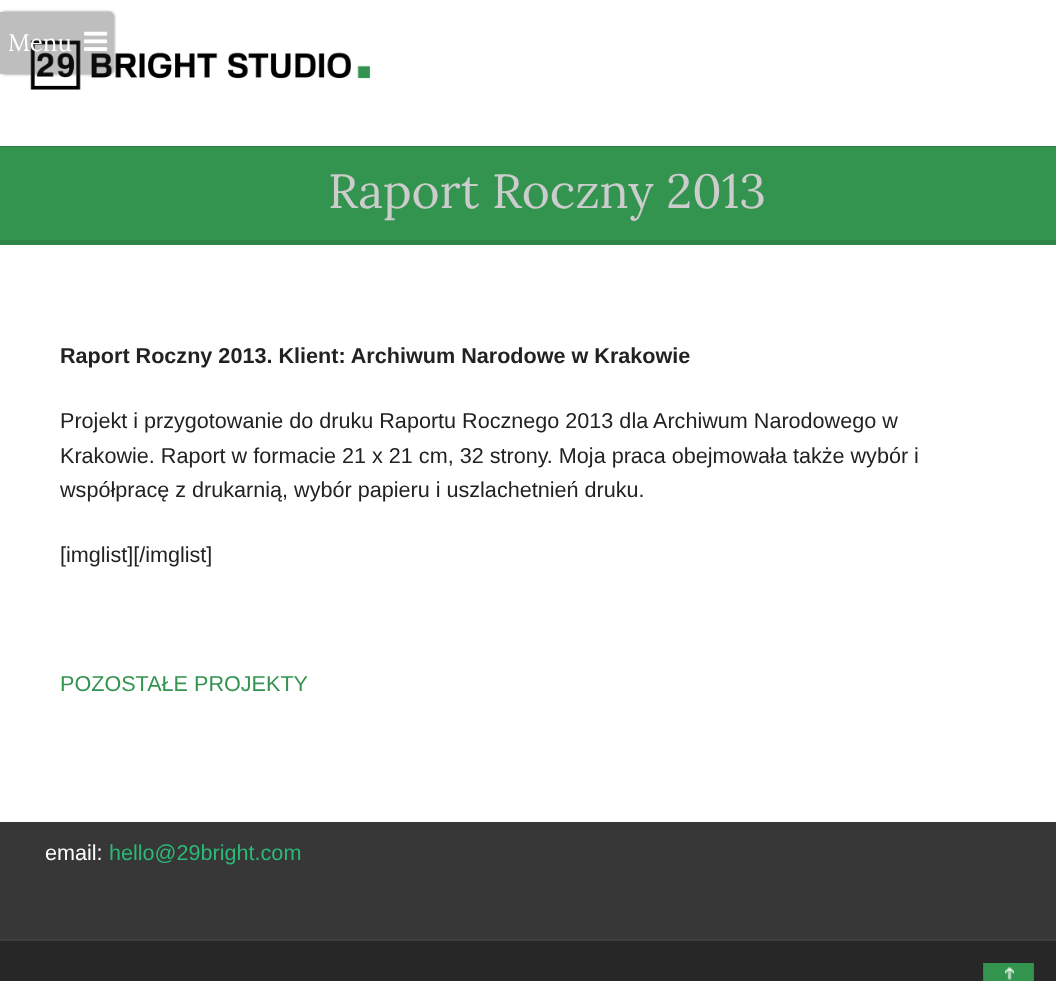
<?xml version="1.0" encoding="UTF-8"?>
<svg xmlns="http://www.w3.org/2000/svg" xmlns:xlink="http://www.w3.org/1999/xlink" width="1056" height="981">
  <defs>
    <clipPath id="clip1"><path d="M 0 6 h 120 v 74 h -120 z m 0 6 h 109 c 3 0 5 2 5 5 v 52 c 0 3 -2 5 -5 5 h -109 z" clip-rule="evenodd" /></clipPath>
    <clipPath id="clip2"><rect x="23" y="963" width="1011" height="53" /></clipPath>
  </defs>
  <rect width="100%" height="100%" fill="#ffffff" />
  <rect y="146" width="1056" height="1" fill="#308b4a" />
  <rect y="147" width="1056" height="93" fill="#33944f" />
  <rect y="2" width="1056" height="145" fill="#000000" fill-opacity="0.1" filter="blur(1px)" />
  <rect y="1" width="1056" height="145" fill="#ffffff" />
  <image x="30" y="40" width="341" height="50" xlink:href="image2.png" />
  <g clip-path="url(#clip1)">
    <rect y="12" width="114" height="62" rx="5" fill="#323232" fill-opacity="0.64" filter="blur(1.5px)" />
  </g>
  <path d="M 0 12 h 109 c 3 0 5 2 5 5 v 52 c 0 3 -2 5 -5 5 h -109 z" fill="#282828" fill-opacity="0.3" />
  <image x="84" y="31" width="24" height="20" xlink:href="image1.png" />
  <rect y="240" width="1056" height="5" fill="#2e8547" />
  <rect y="822" width="1056" height="117" fill="#373737" />
  <rect y="939" width="1056" height="2" fill="#3f3f3f" />
  <rect y="941" width="1056" height="40" fill="#272727" />
  <g clip-path="url(#clip2)">
    <rect x="983" y="948" width="52" height="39" rx="6" fill="#33944f" />
  </g>
  <image x="1005" y="967" width="9" height="13" xlink:href="image3.png" />
  <g clip-path="url(#clip2)">
    <path d="M 985 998 c -3 -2.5 -2 -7.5 -2 -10 v -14 c 0 -29.5 -4 -25 26 -25 c 29.5 0 25 -4.5 25 25 v 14 c 0 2.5 1.5 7.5 -1.5 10" fill="none" stroke="#000000" stroke-opacity="0.1" stroke-width="1.5" />
  </g>
  <text x="8" y="51" style="font-family: Lora; font-size: 24px; fill: #ffffff">Menu</text>
  <text x="328" y="208" style="font-family: Lora; font-size: 48px; fill: #cccccc">Raport Roczny 2013</text>
  <text x="60" y="363" style="font-family: Liberation Sans; font-size: 21.6px; font-weight: bold; fill: #222222">Raport Roczny 2013. Klient: Archiwum Narodowe w Krakowie</text>
  <text x="60" y="428" style="font-family: Liberation Sans; font-size: 21.6px; fill: #222222">Projekt i przygotowanie do druku Raportu Rocznego 2013 dla Archiwum Narodowego w</text>
  <text x="60" y="463" style="font-family: Liberation Sans; font-size: 21.6px; fill: #222222">Krakowie. Raport w formacie 21 x 21 cm, 32 strony. Moja praca obejmowała także wybór i</text>
  <text x="60" y="497" style="font-family: Liberation Sans; font-size: 21.6px; fill: #222222">współpracę z drukarnią, wybór papieru i uszlachetnień druku.</text>
  <text x="60" y="562" style="font-family: Liberation Sans; font-size: 21.6px; fill: #222222">[imglist][/imglist]</text>
  <text x="60" y="691" style="font-family: Liberation Sans; font-size: 21.6px; fill: #33944f">POZOSTAŁE PROJEKTY</text>
  <text x="45" y="860" style="font-family: Liberation Sans; font-size: 21.6px; fill: #ffffff">email:</text>
  <text x="109" y="860" style="font-family: Liberation Sans; font-size: 21.6px; fill: #2bb975">hello@29bright.com</text>
</svg>
